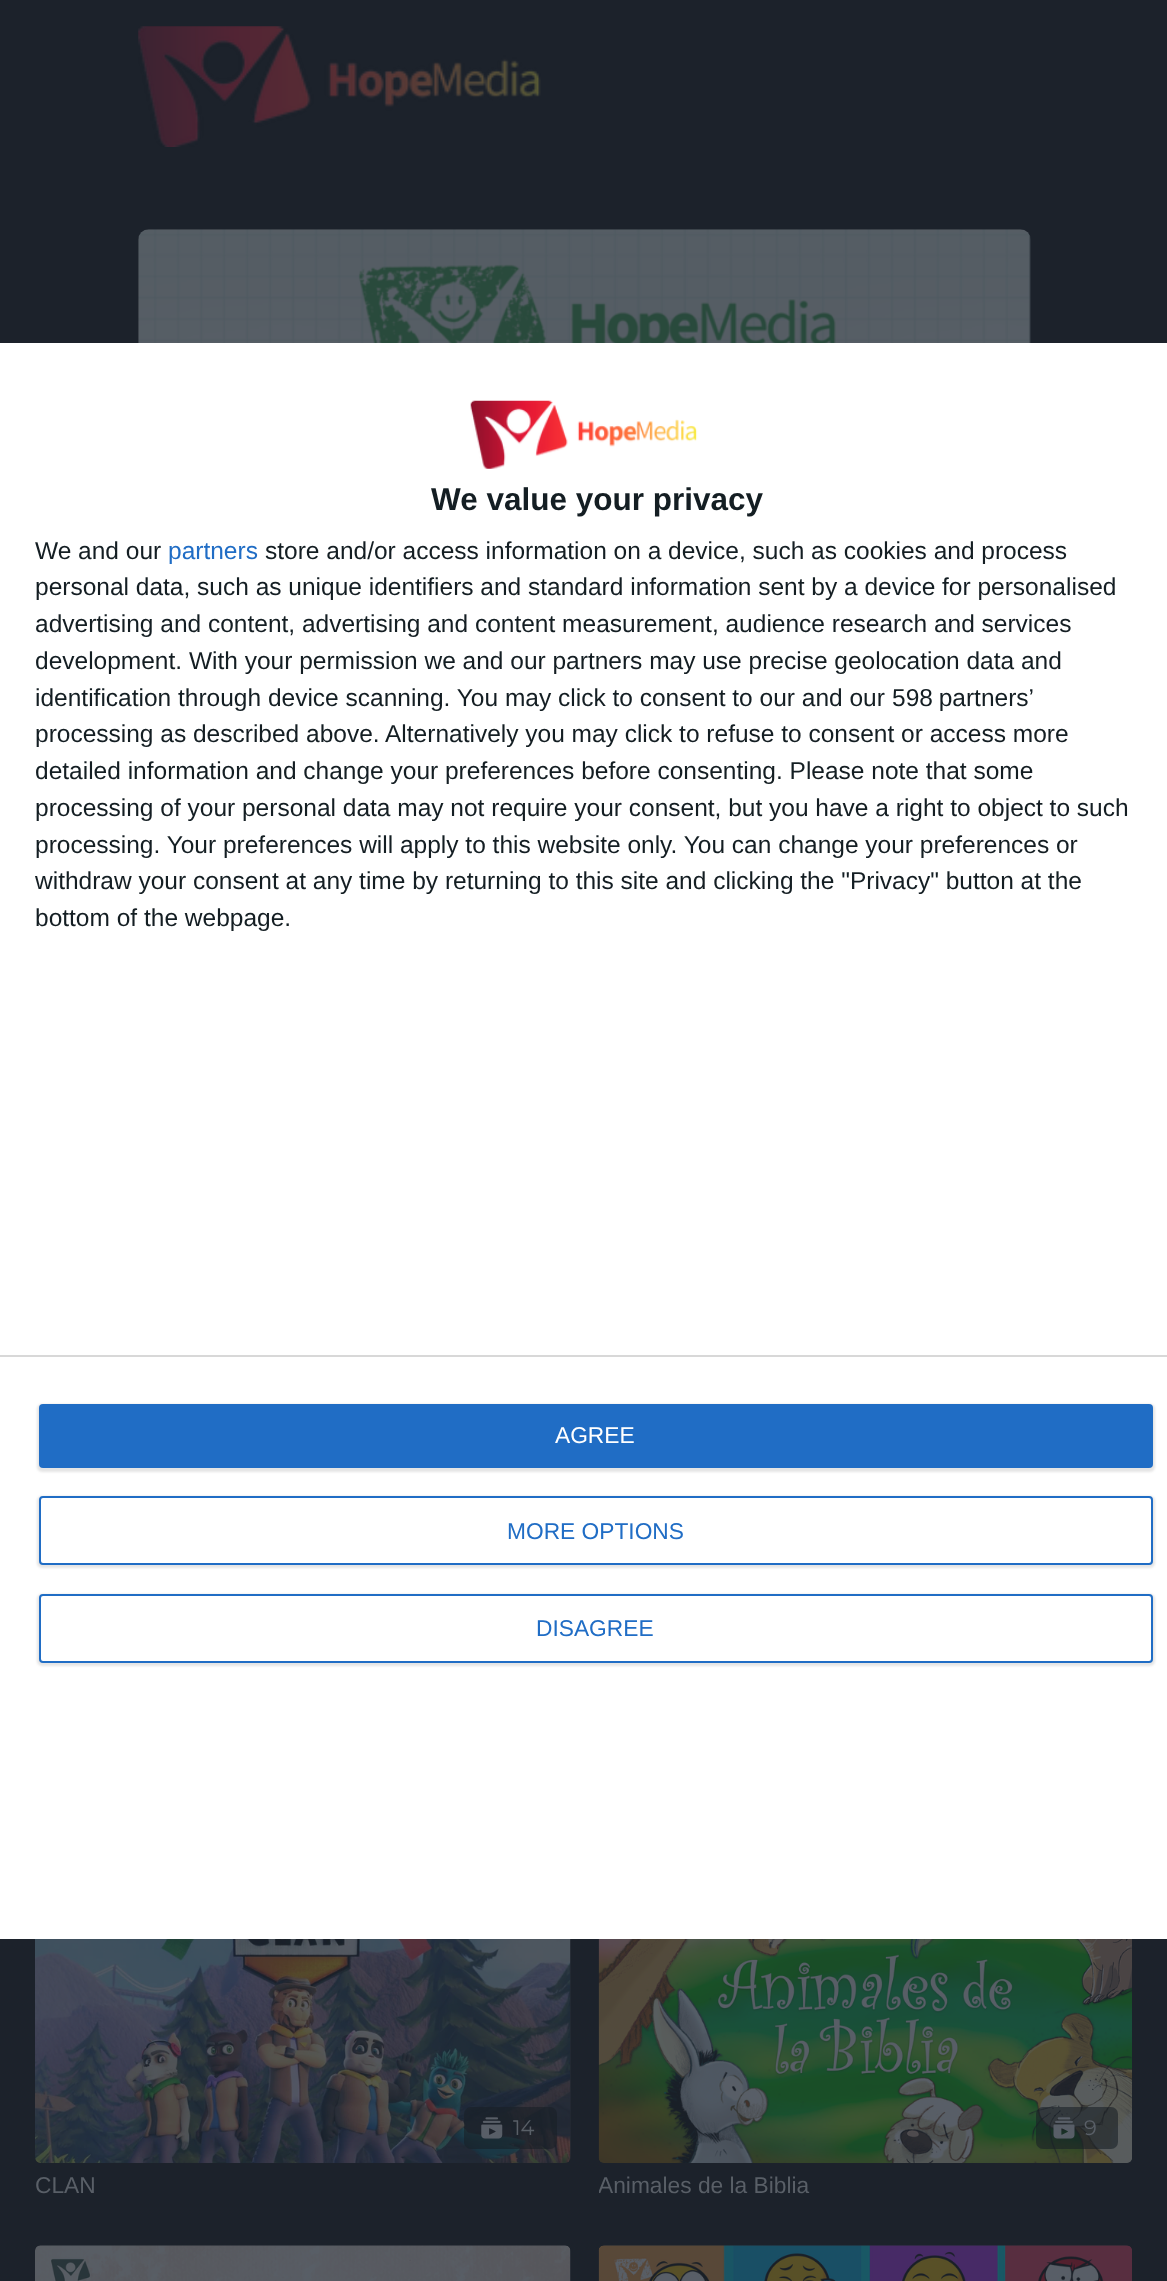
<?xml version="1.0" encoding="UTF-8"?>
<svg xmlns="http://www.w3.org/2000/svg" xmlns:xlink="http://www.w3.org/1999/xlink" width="1167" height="2281">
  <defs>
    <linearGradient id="g1" gradientUnits="userSpaceOnUse" x1="35" y1="2013" x2="571" y2="2013"><stop offset="0.08" stop-color="#242a33" /><stop offset="0.18" stop-color="#232a32" /><stop offset="0.33" stop-color="#232932" /></linearGradient>
    <linearGradient id="g2" gradientUnits="userSpaceOnUse" x1="35" y1="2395" x2="571" y2="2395"><stop offset="0.08" stop-color="#242a33" /><stop offset="0.18" stop-color="#232a32" /><stop offset="0.33" stop-color="#232932" /></linearGradient>
    <linearGradient id="g3" gradientUnits="userSpaceOnUse" x1="599" y1="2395" x2="1132" y2="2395"><stop offset="0.08" stop-color="#242a33" /><stop offset="0.18" stop-color="#232a32" /><stop offset="0.33" stop-color="#232932" /></linearGradient>
    <clipPath id="clip1"><rect x="599" y="2168" width="533" height="35" /></clipPath>
  </defs>
  <rect width="100%" height="100%" fill="#1c222b" />
  <image x="138" y="26" width="403" height="121" xlink:href="image1.png" />
  <rect x="35" y="1864" width="536" height="299" rx="7" fill="url(#g1)" />
  <rect y="343" width="1167" height="1596" fill="#ffffff" />
  <image x="470" y="400" width="228" height="69" xlink:href="image2.png" />
  <rect y="1355" width="1167" height="2" fill="#d8d8d8" />
  <rect x="37" y="1404" width="1118" height="68" rx="5" fill="#000000" fill-opacity="0.1" filter="blur(1px)" />
  <rect x="39" y="1404" width="1114" height="64" rx="4" fill="#206dc5" />
  <rect x="37" y="1496" width="1118" height="72" rx="5" fill="#000000" fill-opacity="0.1" filter="blur(1px)" />
  <rect x="40" y="1497" width="1112" height="67" rx="3" fill="#ffffff" stroke="#206dc5" stroke-width="2" />
  <rect x="37" y="1594" width="1118" height="72" rx="5" fill="#000000" fill-opacity="0.1" filter="blur(1px)" />
  <rect x="40" y="1595" width="1112" height="67" rx="3" fill="#ffffff" stroke="#206dc5" stroke-width="2" />
  <image x="138" y="229" width="893" height="114" xlink:href="image3.png" />
  <image x="35" y="1939" width="536" height="224" xlink:href="image4.png" />
  <rect x="464" y="2107" width="93" height="42" rx="7" fill="#191f27" fill-opacity="0.6" />
  <image x="481" y="2117" width="22" height="22" xlink:href="image5.png" />
  <image x="598" y="1939" width="534" height="224" xlink:href="image6.png" />
  <rect x="1036" y="2107" width="82" height="42" rx="7" fill="#191f27" fill-opacity="0.6" />
  <image x="1053" y="2117" width="22" height="22" xlink:href="image7.png" />
  <rect x="35" y="2245" width="536" height="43" rx="7" fill="url(#g2)" />
  <image x="35" y="2245" width="536" height="36" xlink:href="image8.png" />
  <rect x="599" y="2245" width="533" height="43" rx="7" fill="url(#g3)" />
  <image x="598" y="2245" width="534" height="36" xlink:href="image9.png" />
  <text x="431" y="510" style="font-family: Liberation Sans; font-size: 31.5px; font-weight: bold; fill: #141e23">We value your privacy</text>
  <text x="35" y="559" style="font-family: Liberation Sans; font-size: 24.5px; fill: #141e23">We and our</text>
  <text x="168" y="559" style="font-family: Liberation Sans; font-size: 24.5px; fill: #206dc5">partners</text>
  <text x="265" y="559" style="font-family: Liberation Sans; font-size: 24.5px; fill: #141e23">store and/or access information on a device, such as cookies and process</text>
  <text x="35" y="595" style="font-family: Liberation Sans; font-size: 24.5px; fill: #141e23">personal data, such as unique identifiers and standard information sent by a device for personalised</text>
  <text x="35" y="632" style="font-family: Liberation Sans; font-size: 24.5px; fill: #141e23">advertising and content, advertising and content measurement, audience research and services</text>
  <text x="35" y="669" style="font-family: Liberation Sans; font-size: 24.5px; fill: #141e23">development. With your permission we and our partners may use precise geolocation data and</text>
  <text x="35" y="706" style="font-family: Liberation Sans; font-size: 24.5px; fill: #141e23">identification through device scanning. You may click to consent to our and our</text>
  <text x="892" y="706" word-spacing="-1" style="font-family: Liberation Sans; font-size: 24.5px; fill: #141e23">598 partners’</text>
  <text x="35" y="742" style="font-family: Liberation Sans; font-size: 24.5px; fill: #141e23">processing as described above. Alternatively you may click to refuse to consent or access more</text>
  <text x="35" y="779" style="font-family: Liberation Sans; font-size: 24.5px; fill: #141e23">detailed information and change your preferences before consenting. Please note that some</text>
  <text x="35" y="816" style="font-family: Liberation Sans; font-size: 24.5px; fill: #141e23">processing of your personal data may not require your consent, but you have a right to object to such</text>
  <text x="35" y="853" style="font-family: Liberation Sans; font-size: 24.5px; fill: #141e23">processing. Your preferences will apply to this website only. You can change your preferences or</text>
  <text x="35" y="889" style="font-family: Liberation Sans; font-size: 24.5px; fill: #141e23">withdraw your consent at any time by returning to this site and clicking the "Privacy" button at the</text>
  <text x="35" y="926" style="font-family: Liberation Sans; font-size: 24.5px; fill: #141e23">bottom of the webpage.</text>
  <text x="555" y="1443" style="font-family: Liberation Sans; font-size: 22.75px; fill: #ffffff">AGREE</text>
  <text x="507" y="1539" style="font-family: Liberation Sans; font-size: 22.75px; fill: #206dc5">MORE OPTIONS</text>
  <text x="536" y="1636" style="font-family: Liberation Sans; font-size: 22.75px; fill: #206dc5">DISAGREE</text>
  <text x="513" y="2135" style="font-family: Montserrat; font-size: 21px; fill: #595f67">14</text>
  <text x="35" y="2193" style="font-family: Liberation Sans; font-size: 22.75px; fill: #595f67">CLAN</text>
  <text x="1084" y="2135" style="font-family: Montserrat; font-size: 21px; fill: #595f67">9</text>
  <g clip-path="url(#clip1)">
    <text x="598" y="2193" style="font-family: Liberation Sans; font-size: 22.75px; fill: #595f67">Animales de la Biblia</text>
  </g>
</svg>
